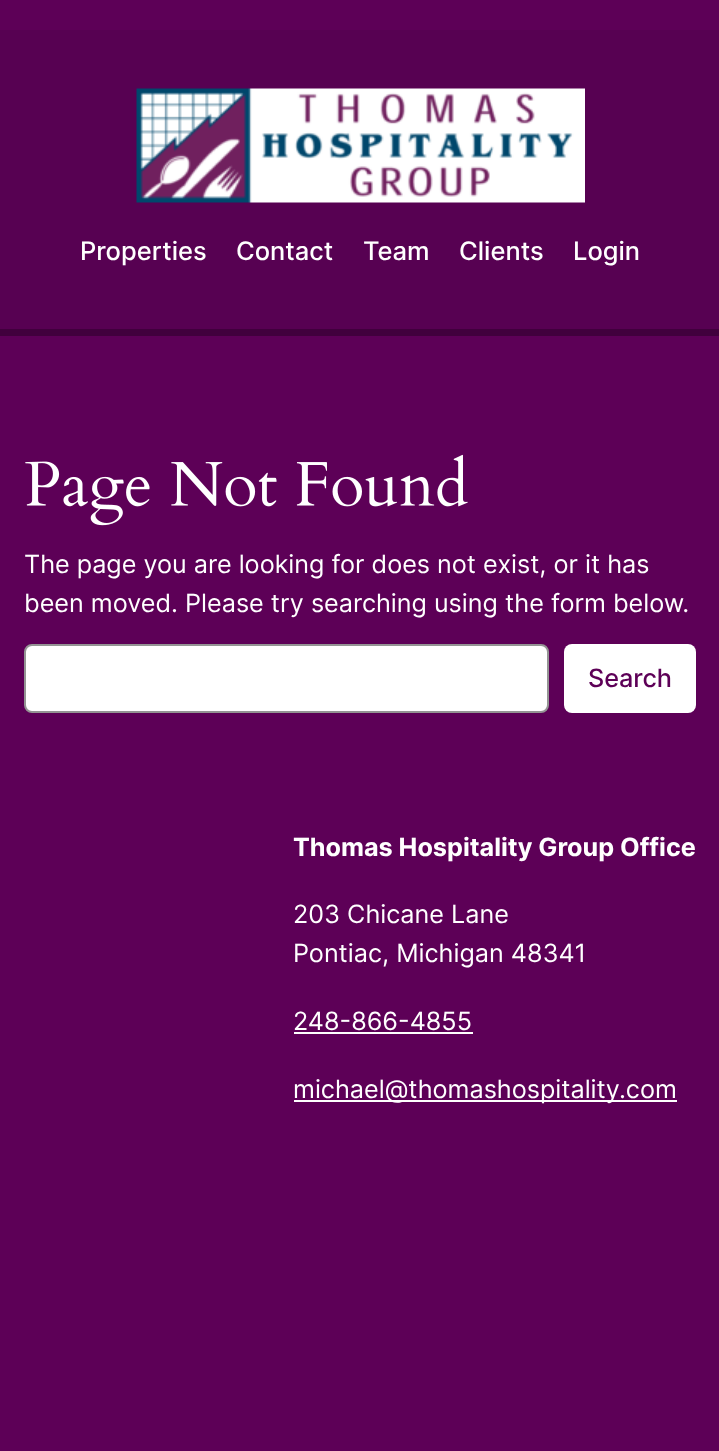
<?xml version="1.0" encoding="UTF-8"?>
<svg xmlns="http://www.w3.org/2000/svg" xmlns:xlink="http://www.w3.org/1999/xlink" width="719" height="1451">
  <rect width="100%" height="100%" fill="#5d0057" />
  <rect y="30" width="719" height="299" fill="#570152" />
  <rect y="329" width="719" height="7" fill="#41003d" />
  <image x="136" y="88" width="449" height="115" xlink:href="image1.png" />
  <image x="25" y="454" width="443" height="72" xlink:href="image2.png" />
  <rect x="25" y="645" width="523" height="67" rx="7" fill="#ffffff" stroke="#949494" stroke-width="2" />
  <rect x="564" y="644" width="132" height="69" rx="8" fill="#ffffff" />
  <rect x="294" y="1032" width="179" height="2" fill="#ffffff" />
  <rect x="294" y="1100" width="383" height="2" fill="#ffffff" />
  <text x="80" y="260" style="font-family: Inter; font-size: 25.5px; font-weight: 500; fill: #ffffff">Properties</text>
  <text x="236" y="260" style="font-family: Inter; font-size: 25.5px; font-weight: 500; fill: #ffffff">Contact</text>
  <text x="363" y="260" style="font-family: Inter; font-size: 25.5px; font-weight: 500; fill: #ffffff">Team</text>
  <text x="459" y="260" style="font-family: Inter; font-size: 25.5px; font-weight: 500; fill: #ffffff">Clients</text>
  <text x="573" y="260" style="font-family: Inter; font-size: 25.5px; font-weight: 500; fill: #ffffff">Login</text>
  <text x="24" y="573" style="font-family: Inter; font-size: 25.2px; fill: #ffffff">The page you are looking for does not exist, or it has</text>
  <text x="24" y="612" style="font-family: Inter; font-size: 25.2px; fill: #ffffff">been moved. Please try searching using the form below.</text>
  <text x="588" y="687" style="font-family: Inter; font-size: 25.2px; font-weight: 500; fill: #5d0057">Search</text>
  <text x="293" y="856" style="font-family: Inter; font-size: 25.2px; font-weight: bold; fill: #ffffff">Thomas Hospitality Group Office</text>
  <text x="293" y="923" style="font-family: Inter; font-size: 25.2px; fill: #ffffff">203 Chicane Lane</text>
  <text x="293" y="962" style="font-family: Inter; font-size: 25.2px; fill: #ffffff">Pontiac, Michigan 48341</text>
  <text x="293" y="1030" style="font-family: Inter; font-size: 25.2px; fill: #ffffff">248-866-4855</text>
  <text x="293" y="1098" style="font-family: Inter; font-size: 25.2px; fill: #ffffff">michael@thomashospitality.com</text>
</svg>
